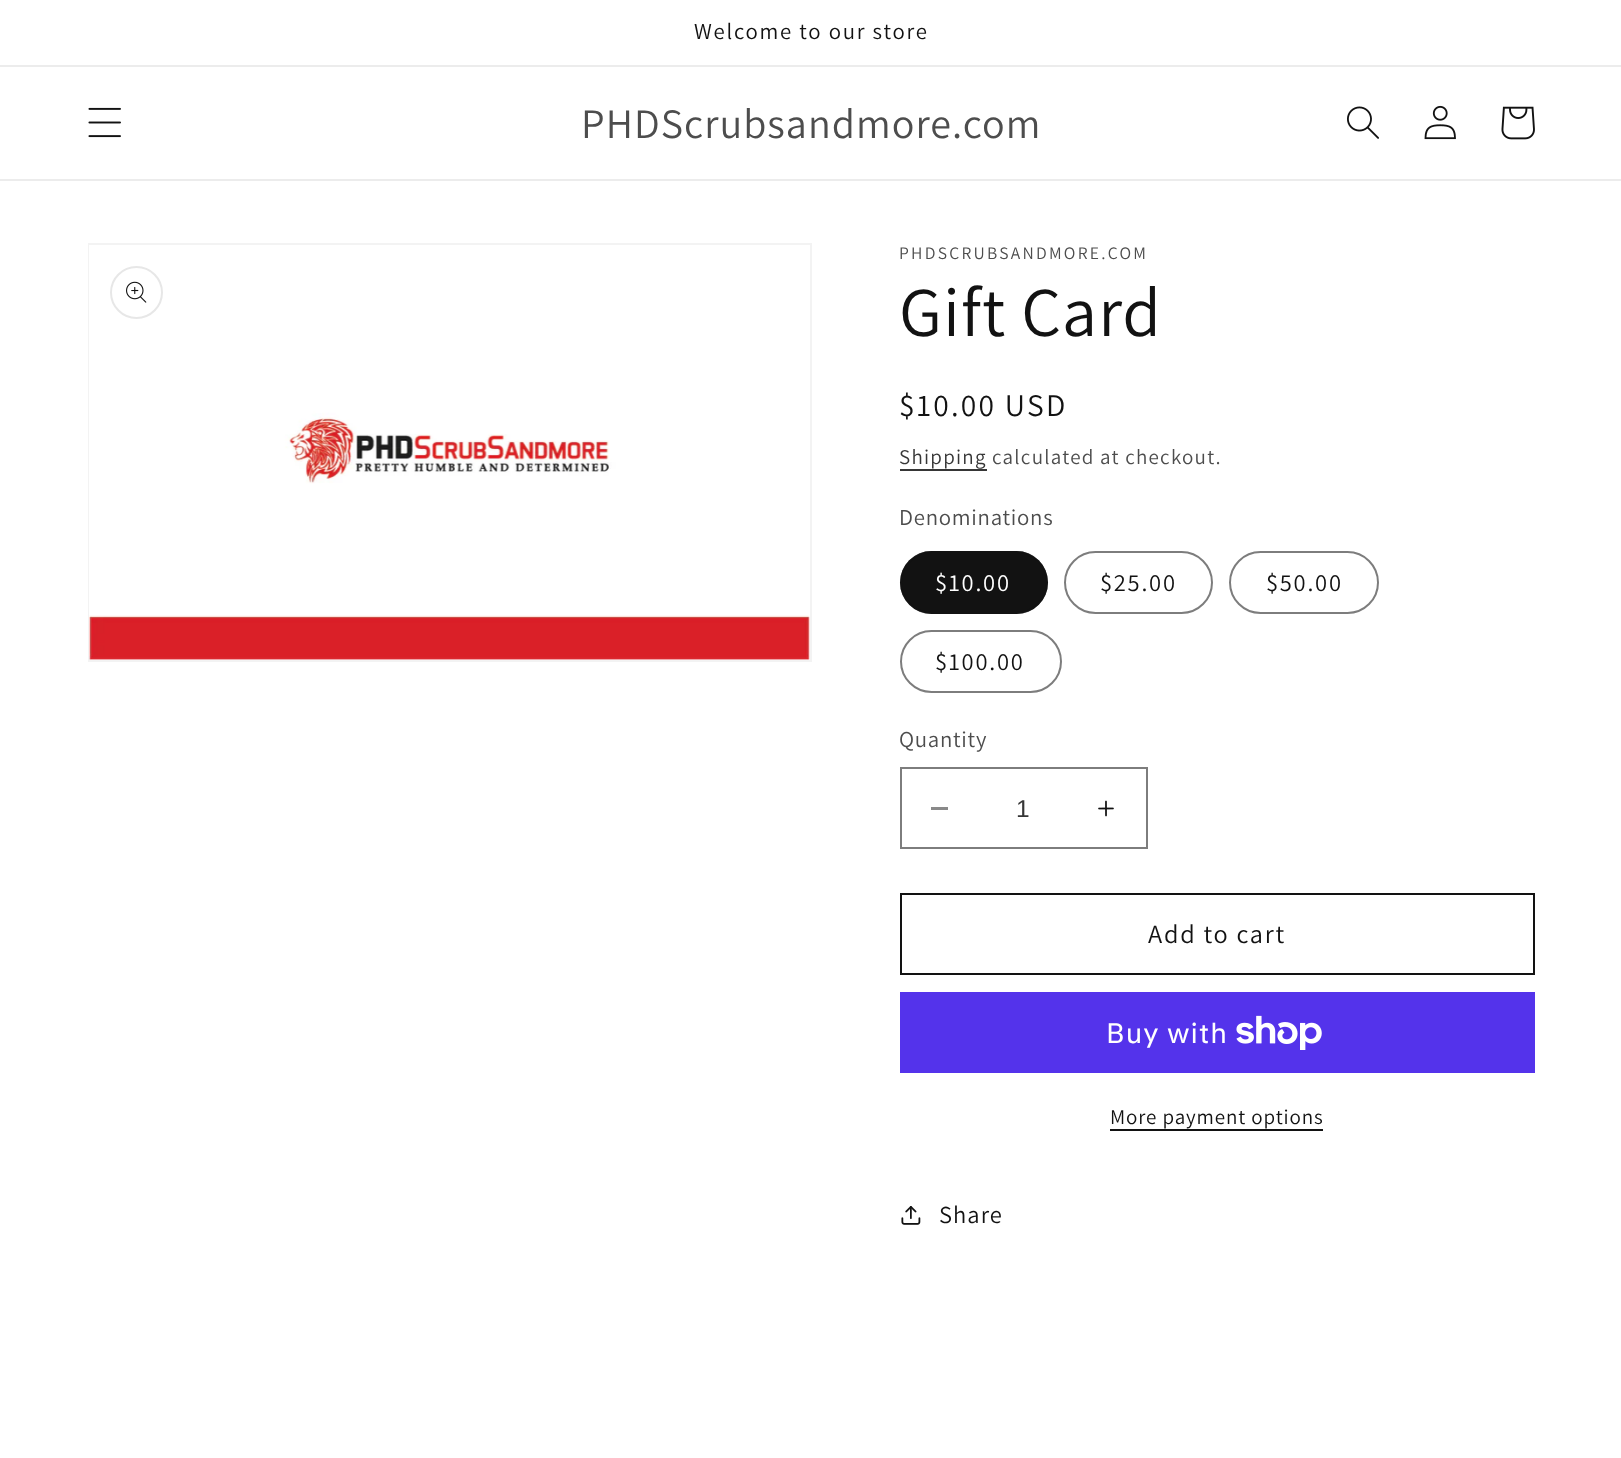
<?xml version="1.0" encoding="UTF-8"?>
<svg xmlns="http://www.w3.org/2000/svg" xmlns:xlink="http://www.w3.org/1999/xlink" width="1621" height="1458">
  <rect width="100%" height="100%" fill="#ffffff" />
  <rect y="65" width="1621" height="2" fill="#ececec" />
  <rect y="179" width="1621" height="2" fill="#ececec" />
  <image x="88" y="107" width="33" height="31" xlink:href="image1.png" />
  <image x="1347" y="106" width="32" height="33" xlink:href="image2.png" />
  <image x="1424" y="105" width="32" height="35" xlink:href="image3.png" />
  <image x="1501" y="106" width="34" height="34" xlink:href="image4.png" />
  <rect x="89" y="244" width="722" height="417" fill="none" stroke="#f3f3f3" stroke-width="2" />
  <image x="89" y="245" width="721" height="415" xlink:href="image5.png" />
  <circle cx="136.5" cy="292.5" r="25.5" fill="none" stroke="#e7e7e7" stroke-width="2" />
  <image x="126" y="281" width="21" height="22" xlink:href="image6.png" />
  <rect x="900" y="469" width="87" height="2" fill="#363636" />
  <rect x="900" y="551" width="148" height="63" rx="31.5" fill="#121212" />
  <rect x="901" y="552" width="146" height="61" rx="30.5" fill="none" stroke="#121212" stroke-opacity="0.55" stroke-width="2" />
  <rect x="1065" y="552" width="147" height="61" rx="30.5" fill="none" stroke="#7d7d7d" stroke-width="2" />
  <rect x="1230" y="552" width="148" height="61" rx="30.5" fill="none" stroke="#7d7d7d" stroke-width="2" />
  <rect x="901" y="631" width="160" height="61" rx="30.5" fill="none" stroke="#7d7d7d" stroke-width="2" />
  <rect x="931" y="807" width="17" height="3" fill="#898989" />
  <image x="1098" y="800" width="16" height="17" xlink:href="image7.png" />
  <rect x="901" y="768" width="246" height="80" fill="none" stroke="#7d7d7d" stroke-width="2" />
  <rect x="901" y="894" width="633" height="80" fill="none" stroke="#121212" stroke-width="2" />
  <rect x="900" y="992" width="635" height="81" fill="#5433eb" />
  <image x="1236" y="1015" width="86" height="35" xlink:href="image8.png" />
  <rect x="1110" y="1129" width="213" height="2" fill="#121212" />
  <image x="901" y="1206" width="20" height="19" xlink:href="image9.png" />
  <text x="694" y="39" style="font-family: Assistant; font-size: 22.75px; letter-spacing: 1.75px; fill: #121212">Welcome to our store</text>
  <text x="581" y="138" style="font-family: Assistant; font-size: 42px; letter-spacing: 1.05px; fill: #4d4d4d">PHDScrubsandmore.com</text>
  <text x="899" y="259" style="font-family: Assistant; font-size: 17.5px; letter-spacing: 2.25px; fill: #4d4d4d">PHDSCRUBSANDMORE.COM</text>
  <text x="899" y="336" style="font-family: Assistant; font-size: 70px; letter-spacing: 1.05px; fill: #121212">Gift Card</text>
  <text x="899" y="416" style="font-family: Assistant; font-size: 31.5px; letter-spacing: 2.25px; fill: #121212">$10.00 USD</text>
  <text x="899" y="464" style="font-family: Assistant; font-size: 21px; letter-spacing: 1.25px; fill: #363636">Shipping</text>
  <text x="992" y="464" style="font-family: Assistant; font-size: 21px; letter-spacing: 1.25px; fill: #4d4d4d">calculated at checkout.</text>
  <text x="899" y="525" style="font-family: Assistant; font-size: 22.75px; letter-spacing: 0.75px; fill: #4d4d4d">Denominations</text>
  <text x="935" y="591" style="font-family: Assistant; font-size: 24.5px; letter-spacing: 1.75px; fill: #ffffff">$10.00</text>
  <text x="1100" y="591" style="font-family: Assistant; font-size: 24.5px; letter-spacing: 1.75px; fill: #121212">$25.00</text>
  <text x="1266" y="591" style="font-family: Assistant; font-size: 24.5px; letter-spacing: 1.75px; fill: #121212">$50.00</text>
  <text x="935" y="670" style="font-family: Assistant; font-size: 24.5px; letter-spacing: 1.75px; fill: #121212">$100.00</text>
  <text x="899" y="747" style="font-family: Assistant; font-size: 22.75px; letter-spacing: 0.75px; fill: #4d4d4d">Quantity</text>
  <text x="1016" y="817" style="font-family: Liberation Sans; font-size: 24.5px; fill: #363636">1</text>
  <text x="1148" y="943" style="font-family: Assistant; font-size: 26.25px; letter-spacing: 1.75px; fill: #121212">Add to cart</text>
  <text x="1106" y="1043" style="font-family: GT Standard; font-size: 28px; letter-spacing: 1.05px; fill: #ffffff">Buy with</text>
  <text x="1110" y="1124" style="font-family: Assistant; font-size: 21px; letter-spacing: 0.9px; fill: #121212">More payment options</text>
  <text x="939" y="1223" style="font-family: Assistant; font-size: 24.5px; letter-spacing: 1.05px; fill: #121212">Share</text>
</svg>
